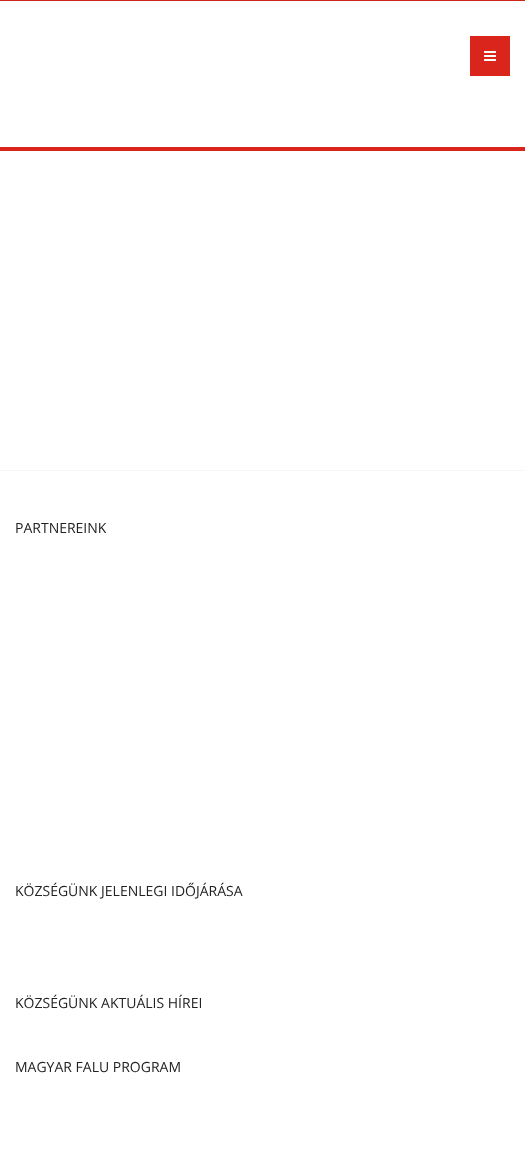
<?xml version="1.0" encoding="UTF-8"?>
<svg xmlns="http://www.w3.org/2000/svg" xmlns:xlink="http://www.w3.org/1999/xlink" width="525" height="1156">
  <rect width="100%" height="100%" fill="#ffffff" />
  <rect width="525" height="1" fill="#cf231b" />
  <rect y="147" width="525" height="4" fill="#da251c" />
  <rect x="470" y="36" width="40" height="40" fill="#da251c" />
  <image x="484" y="51" width="12" height="10" xlink:href="image1.png" />
  <rect y="470" width="525" height="1" fill="#f7f7f7" />
  <text x="15" y="533" style="font-family: Open Sans; font-size: 14px; fill: #222222">PARTNEREINK</text>
  <text x="15" y="896" style="font-family: Open Sans; font-size: 14px; fill: #222222">KÖZSÉGÜNK JELENLEGI IDŐJÁRÁSA</text>
  <text x="15" y="1008" style="font-family: Open Sans; font-size: 14px; fill: #222222">KÖZSÉGÜNK AKTUÁLIS HÍREI</text>
  <text x="15" y="1072" style="font-family: Open Sans; font-size: 14px; fill: #222222">MAGYAR FALU PROGRAM</text>
</svg>
